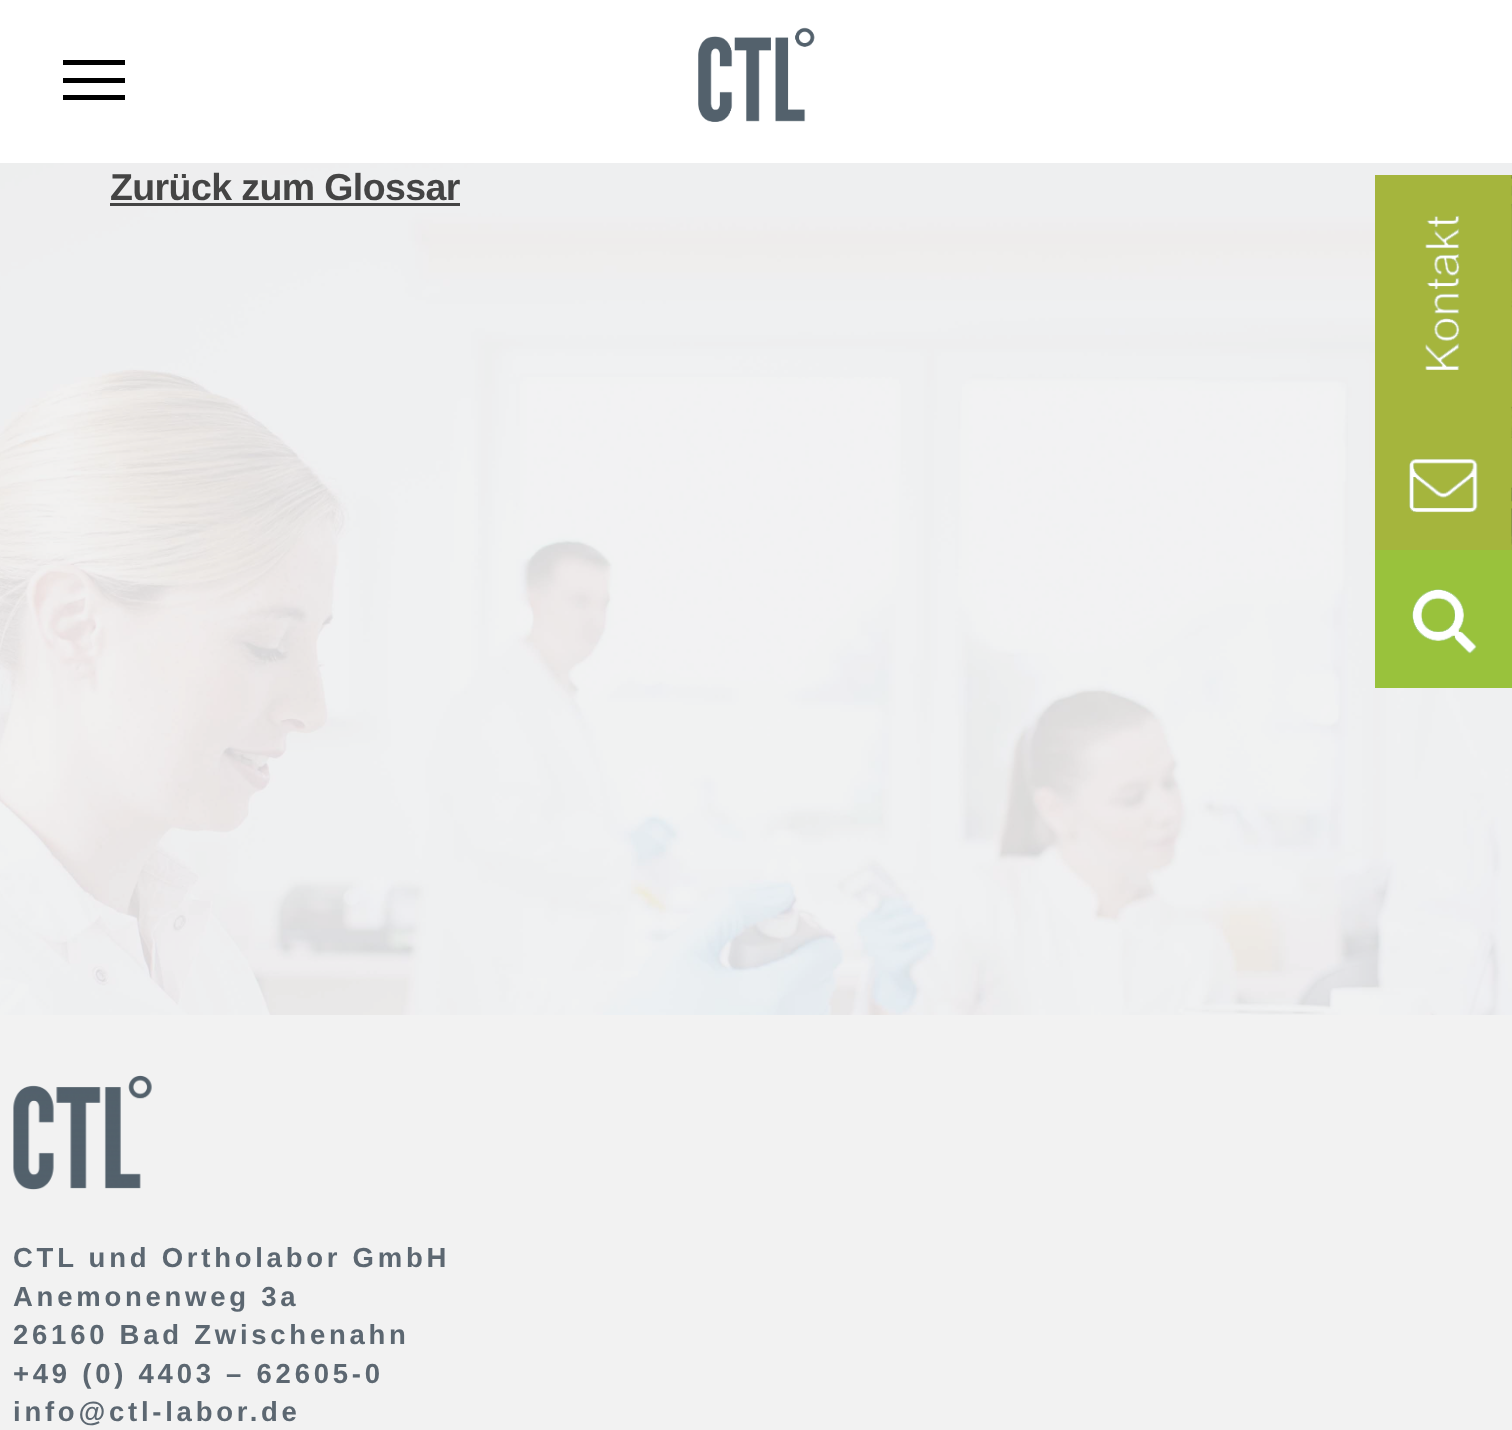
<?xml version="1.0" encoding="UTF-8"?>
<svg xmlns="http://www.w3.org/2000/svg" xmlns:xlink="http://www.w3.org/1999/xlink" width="1512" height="1430">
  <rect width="100%" height="100%" fill="#ffffff" />
  <rect x="63" y="78" width="62" height="5" fill="#000000" />
  <rect x="63" y="60" width="62" height="5" fill="#000000" />
  <rect x="63" y="95" width="62" height="5" fill="#000000" />
  <image x="698" y="27" width="117" height="95" xlink:href="image1.png" />
  <image x="0" y="163" width="1512" height="852" xlink:href="image2.png" />
  <rect x="110" y="203" width="350" height="3" fill="#444444" />
  <rect y="1015" width="1512" height="415" fill="#f2f2f2" />
  <image x="13" y="1075" width="139" height="115" xlink:href="image3.png" />
  <image x="1375" y="175" width="137" height="375" xlink:href="image4.png" />
  <image x="1375" y="550" width="137" height="138" xlink:href="image5.png" />
  <text x="110" y="200" style="font-family: Liberation Sans; font-size: 37.5px; font-weight: bold; letter-spacing: -0.6px; fill: #444444">Zurück zum Glossar</text>
  <text x="13" y="1267" style="font-family: Liberation Sans; font-size: 27.5px; font-weight: bold; letter-spacing: 3.75px; fill: #5c6771">CTL und Ortholabor GmbH</text>
  <text x="13" y="1306" style="font-family: Liberation Sans; font-size: 27.5px; font-weight: bold; letter-spacing: 3.75px; fill: #5c6771">Anemonenweg 3a</text>
  <text x="13" y="1344" style="font-family: Liberation Sans; font-size: 27.5px; font-weight: bold; letter-spacing: 3.75px; fill: #5c6771">26160 Bad Zwischenahn</text>
  <text x="13" y="1383" style="font-family: Liberation Sans; font-size: 27.5px; font-weight: bold; letter-spacing: 3.75px; fill: #5c6771">+49 (0) 4403 – 62605-0</text>
  <text x="13" y="1421" style="font-family: Liberation Sans; font-size: 27.5px; font-weight: bold; letter-spacing: 3.75px; fill: #5c6771">info@ctl-labor.de</text>
</svg>
